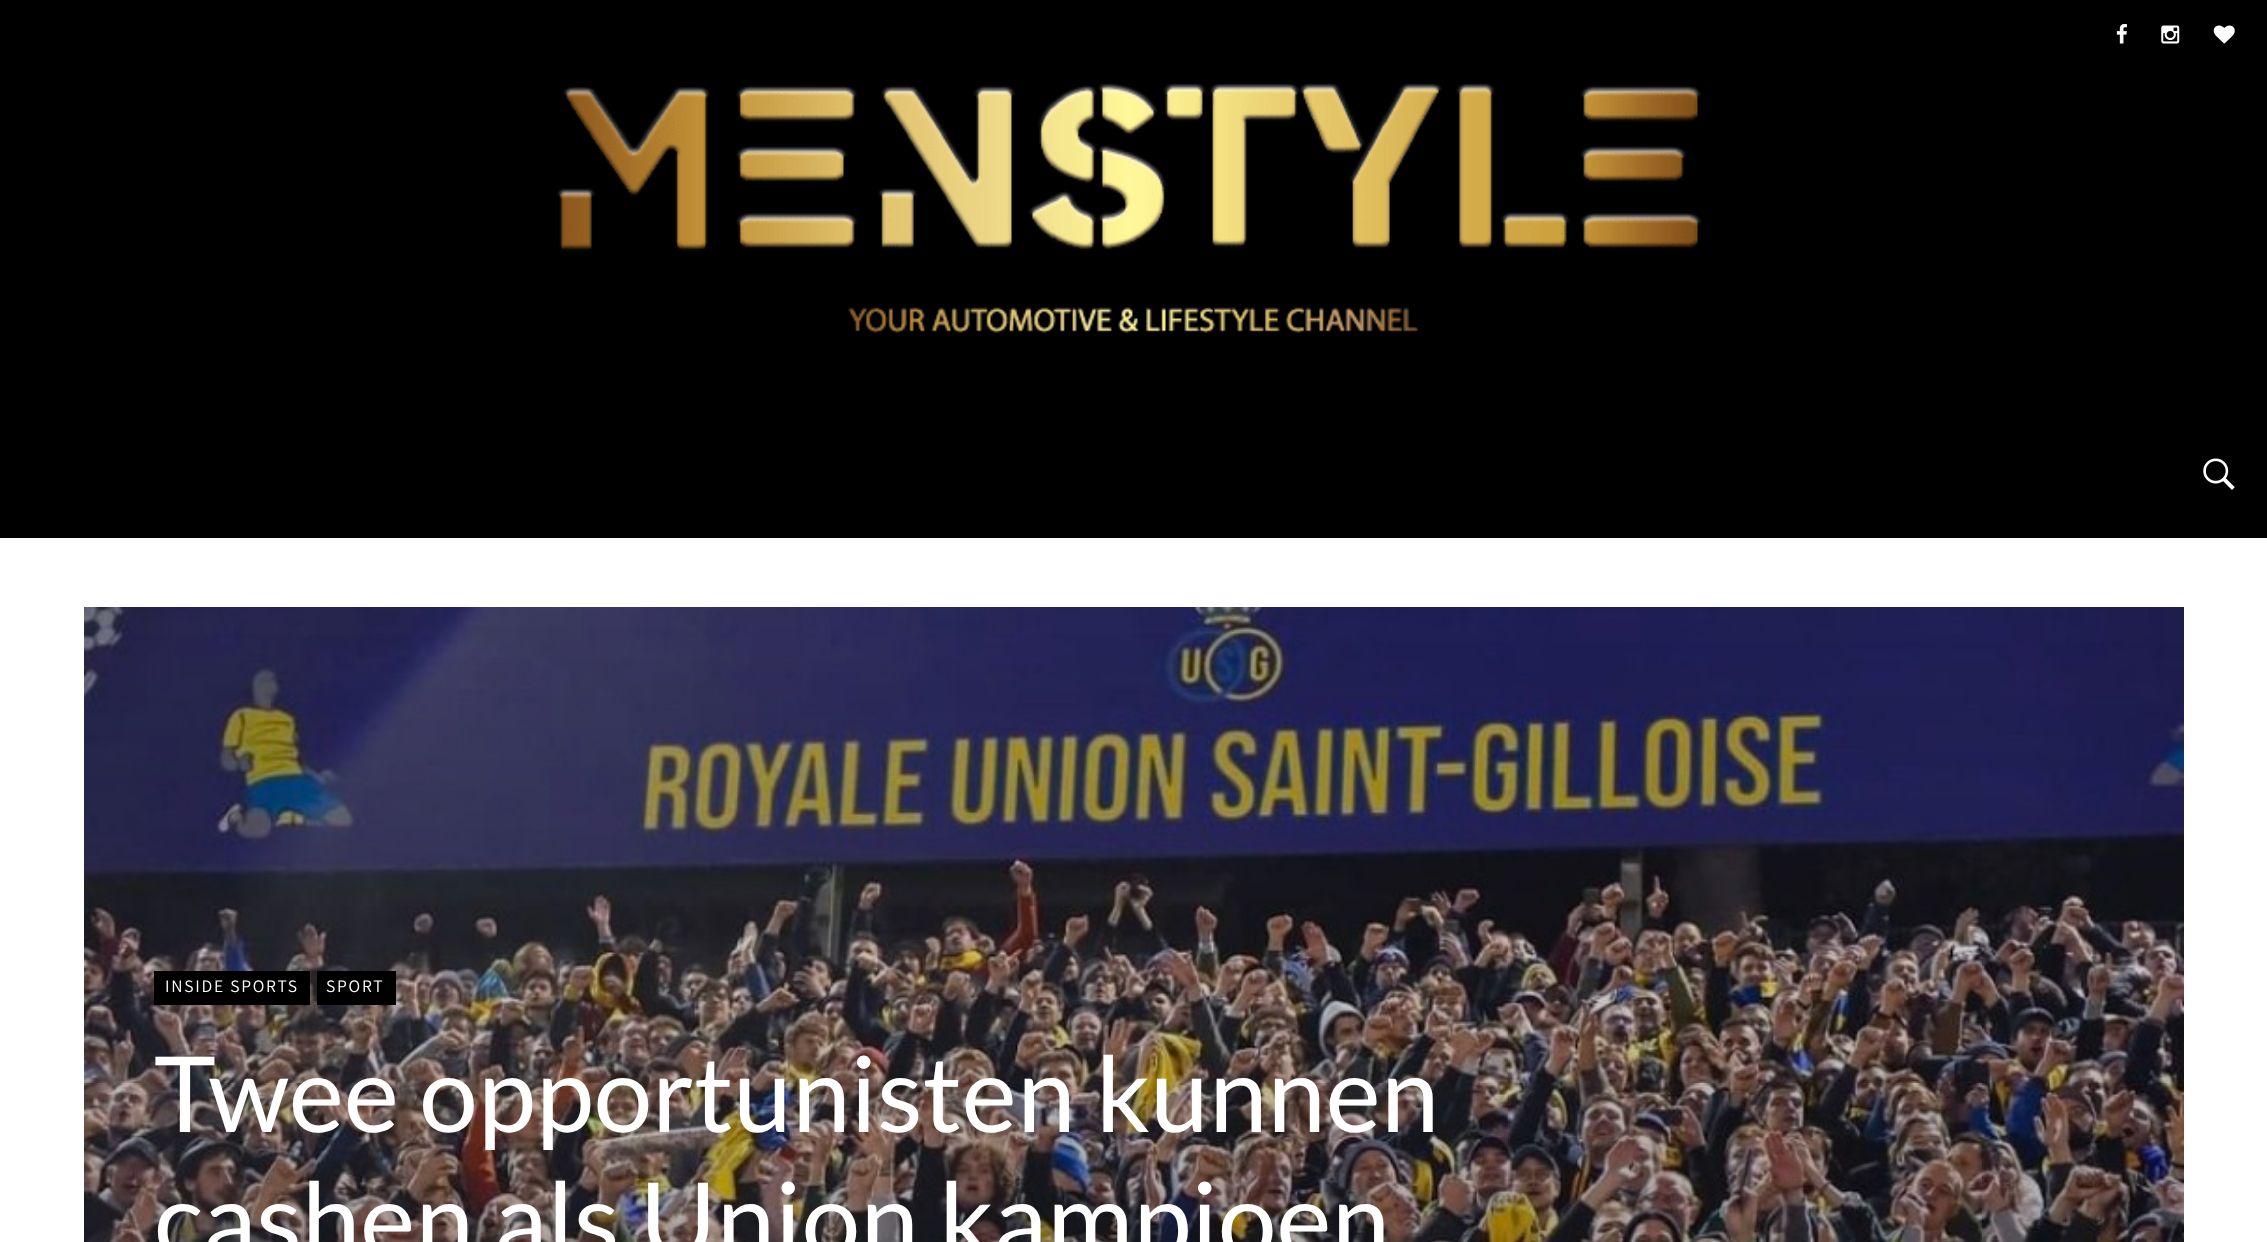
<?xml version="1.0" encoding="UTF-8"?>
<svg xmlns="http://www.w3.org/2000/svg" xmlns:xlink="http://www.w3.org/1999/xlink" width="2267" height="1242">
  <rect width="100%" height="100%" fill="#ffffff" />
  <rect width="2267" height="538" fill="#000000" />
  <image x="2116" y="24" width="11" height="20" xlink:href="image1.png" />
  <image x="2161" y="25" width="19" height="19" xlink:href="image2.png" />
  <image x="2213" y="25" width="22" height="19" xlink:href="image3.png" />
  <image x="556" y="83" width="1146" height="250" xlink:href="image4.png" />
  <image x="2203" y="458" width="32" height="32" xlink:href="image5.png" />
  <image x="84" y="607" width="2100" height="635" xlink:href="image6.png" />
  <rect x="154" y="971" width="156" height="34" fill="#000000" />
  <rect x="317" y="971" width="79" height="34" fill="#000000" />
  <text x="165" y="992" style="font-family: Assistant; font-size: 17.5px; font-weight: 200; letter-spacing: 1.75px; fill: #ffffff">INSIDE SPORTS</text>
  <text x="326" y="992" style="font-family: Assistant; font-size: 17.5px; font-weight: 200; letter-spacing: 1.75px; fill: #ffffff">SPORT</text>
  <text x="154" y="1132" style="font-family: Lato; font-size: 105px; fill: #ffffff">Twee opportunisten kunnen</text>
  <text x="154" y="1258" style="font-family: Lato; font-size: 105px; fill: #ffffff">cashen als Union kampioen</text>
</svg>
